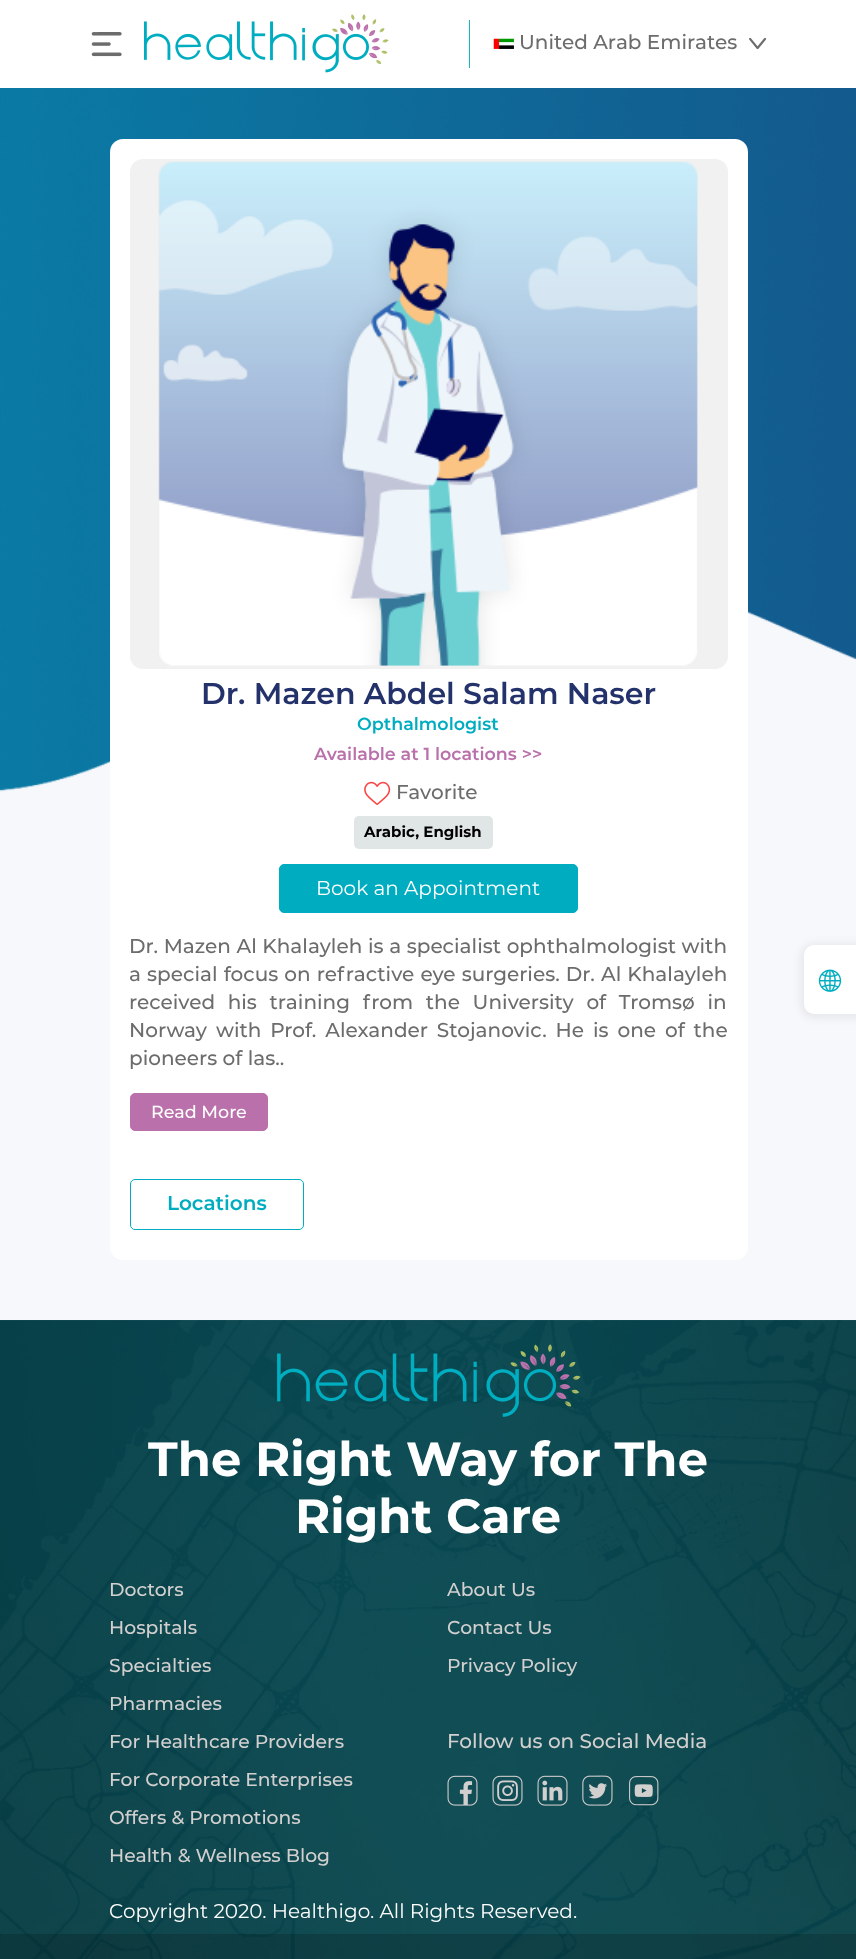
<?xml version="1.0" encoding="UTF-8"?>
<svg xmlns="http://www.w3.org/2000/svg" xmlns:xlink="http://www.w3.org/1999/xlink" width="856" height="1959">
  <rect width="100%" height="100%" fill="#f7f8fc" />
  <rect width="856" height="88" fill="#ffffff" />
  <image x="91" y="32" width="31" height="25" xlink:href="image1.png" />
  <image x="144" y="14" width="245" height="59" xlink:href="image2.png" />
  <rect x="469" y="20" width="1" height="48" fill="#19b2c0" />
  <image x="493" y="38" width="21" height="11" xlink:href="image3.png" />
  <image x="749" y="37" width="18" height="13" xlink:href="image4.png" />
  <image x="0" y="88" width="856" height="704" xlink:href="image5.png" />
  <rect x="110" y="139" width="638" height="1121" rx="13" fill="#ffffff" />
  <rect x="130" y="159" width="598" height="510" rx="13" fill="#f1f1f1" />
  <image x="158" y="161" width="540" height="505" xlink:href="image6.png" />
  <image x="364" y="781" width="27" height="24" xlink:href="image7.png" />
  <rect x="354" y="816" width="139" height="33" rx="5" fill="#e0e5e5" />
  <rect x="279.5" y="864.5" width="298" height="48" rx="4.5" fill="#00adc0" stroke="#00adc0" />
  <rect x="130.5" y="1093.5" width="137" height="37" rx="4.5" fill="#ba71ab" stroke="#ba71ab" />
  <rect x="130.5" y="1179.5" width="173" height="50" rx="4.5" fill="none" stroke="#00adc0" />
  <rect x="801" y="944" width="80" height="74" rx="13" fill="#000000" fill-opacity="0.07" filter="blur(4px)" />
  <rect x="804" y="945" width="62" height="69" rx="10" fill="#ffffff" />
  <image x="818" y="969" width="24" height="23" xlink:href="image8.png" />
  <image x="0" y="1320" width="856" height="639" xlink:href="image9.png" />
  <image x="277" y="1344" width="304" height="73" xlink:href="image10.png" />
  <image x="447" y="1775" width="31" height="31" xlink:href="image11.png" />
  <image x="492" y="1775" width="31" height="31" xlink:href="image12.png" />
  <image x="537" y="1775" width="31" height="31" xlink:href="image13.png" />
  <image x="582" y="1775" width="31" height="31" xlink:href="image14.png" />
  <image x="629" y="1776" width="30" height="30" xlink:href="image15.png" />
  <rect y="1934" width="856" height="25" fill="#000000" fill-opacity="0.16" />
  <text x="519" y="49" style="font-family: Montserrat; font-size: 20px; font-weight: 500; fill: #6c6c6c">United Arab Emirates</text>
  <text x="201" y="704" style="font-family: Montserrat; font-size: 30px; font-weight: 600; fill: #24326c">Dr. Mazen Abdel Salam Naser</text>
  <text x="357" y="730" style="font-family: Montserrat; font-size: 17.5px; font-weight: 600; fill: #00adc0">Opthalmologist</text>
  <text x="314" y="760" style="font-family: Montserrat; font-size: 17.5px; font-weight: 600; fill: #ba71ab">Available at 1 locations &gt;&gt;</text>
  <text x="396" y="799" style="font-family: Montserrat; font-size: 20px; font-weight: 500; fill: #6c6c6c">Favorite</text>
  <text x="364" y="837" style="font-family: Montserrat; font-size: 15px; font-weight: bold; fill: #000000">Arabic, English</text>
  <text x="316" y="895" style="font-family: Montserrat; font-size: 20px; fill: #ffffff">Book an Appointment</text>
  <text x="129" y="953" word-spacing="0.25" style="font-family: Montserrat; font-size: 20px; font-weight: 500; fill: #6c6c6c">Dr. Mazen Al Khalayleh is a specialist ophthalmologist with</text>
  <text x="129" y="981" word-spacing="0.75" style="font-family: Montserrat; font-size: 20px; font-weight: 500; fill: #6c6c6c">a special focus on refractive eye surgeries. Dr. Al Khalayleh</text>
  <text x="129" y="1009" word-spacing="7.25" style="font-family: Montserrat; font-size: 20px; font-weight: 500; fill: #6c6c6c">received his training from the University of Tromsø in</text>
  <text x="129" y="1037" word-spacing="3.5" style="font-family: Montserrat; font-size: 20px; font-weight: 500; fill: #6c6c6c">Norway with Prof. Alexander Stojanovic. He is one of the</text>
  <text x="129" y="1065" style="font-family: Montserrat; font-size: 20px; font-weight: 500; fill: #6c6c6c">pioneers of las..</text>
  <text x="151" y="1118" style="font-family: Montserrat; font-size: 17.5px; font-weight: 500; fill: #ffffff">Read More</text>
  <text x="167" y="1210" style="font-family: Montserrat; font-size: 20px; font-weight: 600; fill: #00adc0">Locations</text>
  <text x="148" y="1476" style="font-family: Montserrat; font-size: 48px; font-weight: bold; fill: #ffffff">The Right Way for The</text>
  <text x="295" y="1533" style="font-family: Montserrat; font-size: 48px; font-weight: bold; fill: #ffffff">Right Care</text>
  <text x="109" y="1596" style="font-family: Montserrat; font-size: 18.75px; font-weight: 500; fill: #d2cfcf">Doctors</text>
  <text x="109" y="1634" style="font-family: Montserrat; font-size: 18.75px; font-weight: 500; fill: #d2cfcf">Hospitals</text>
  <text x="109" y="1672" style="font-family: Montserrat; font-size: 18.75px; font-weight: 500; fill: #d2cfcf">Specialties</text>
  <text x="109" y="1710" style="font-family: Montserrat; font-size: 18.75px; font-weight: 500; fill: #d2cfcf">Pharmacies</text>
  <text x="447" y="1596" style="font-family: Montserrat; font-size: 18.75px; font-weight: 500; fill: #d2cfcf">About Us</text>
  <text x="447" y="1634" style="font-family: Montserrat; font-size: 18.75px; font-weight: 500; fill: #d2cfcf">Contact Us</text>
  <text x="447" y="1672" style="font-family: Montserrat; font-size: 18.75px; font-weight: 500; fill: #d2cfcf">Privacy Policy</text>
  <text x="109" y="1748" style="font-family: Montserrat; font-size: 18.75px; font-weight: 500; fill: #d2cfcf">For Healthcare Providers</text>
  <text x="109" y="1786" style="font-family: Montserrat; font-size: 18.75px; font-weight: 500; fill: #d2cfcf">For Corporate Enterprises</text>
  <text x="109" y="1824" style="font-family: Montserrat; font-size: 18.75px; font-weight: 500; fill: #d2cfcf">Offers &amp; Promotions</text>
  <text x="109" y="1862" style="font-family: Montserrat; font-size: 18.75px; font-weight: 500; fill: #d2cfcf">Health &amp; Wellness Blog</text>
  <text x="447" y="1748" style="font-family: Montserrat; font-size: 20px; font-weight: 500; fill: #d2cfcf">Follow us on Social Media</text>
  <text x="109" y="1918" style="font-family: Montserrat; font-size: 20px; fill: #ffffff">Copyright 2020. Healthigo. All Rights Reserved.</text>
</svg>
